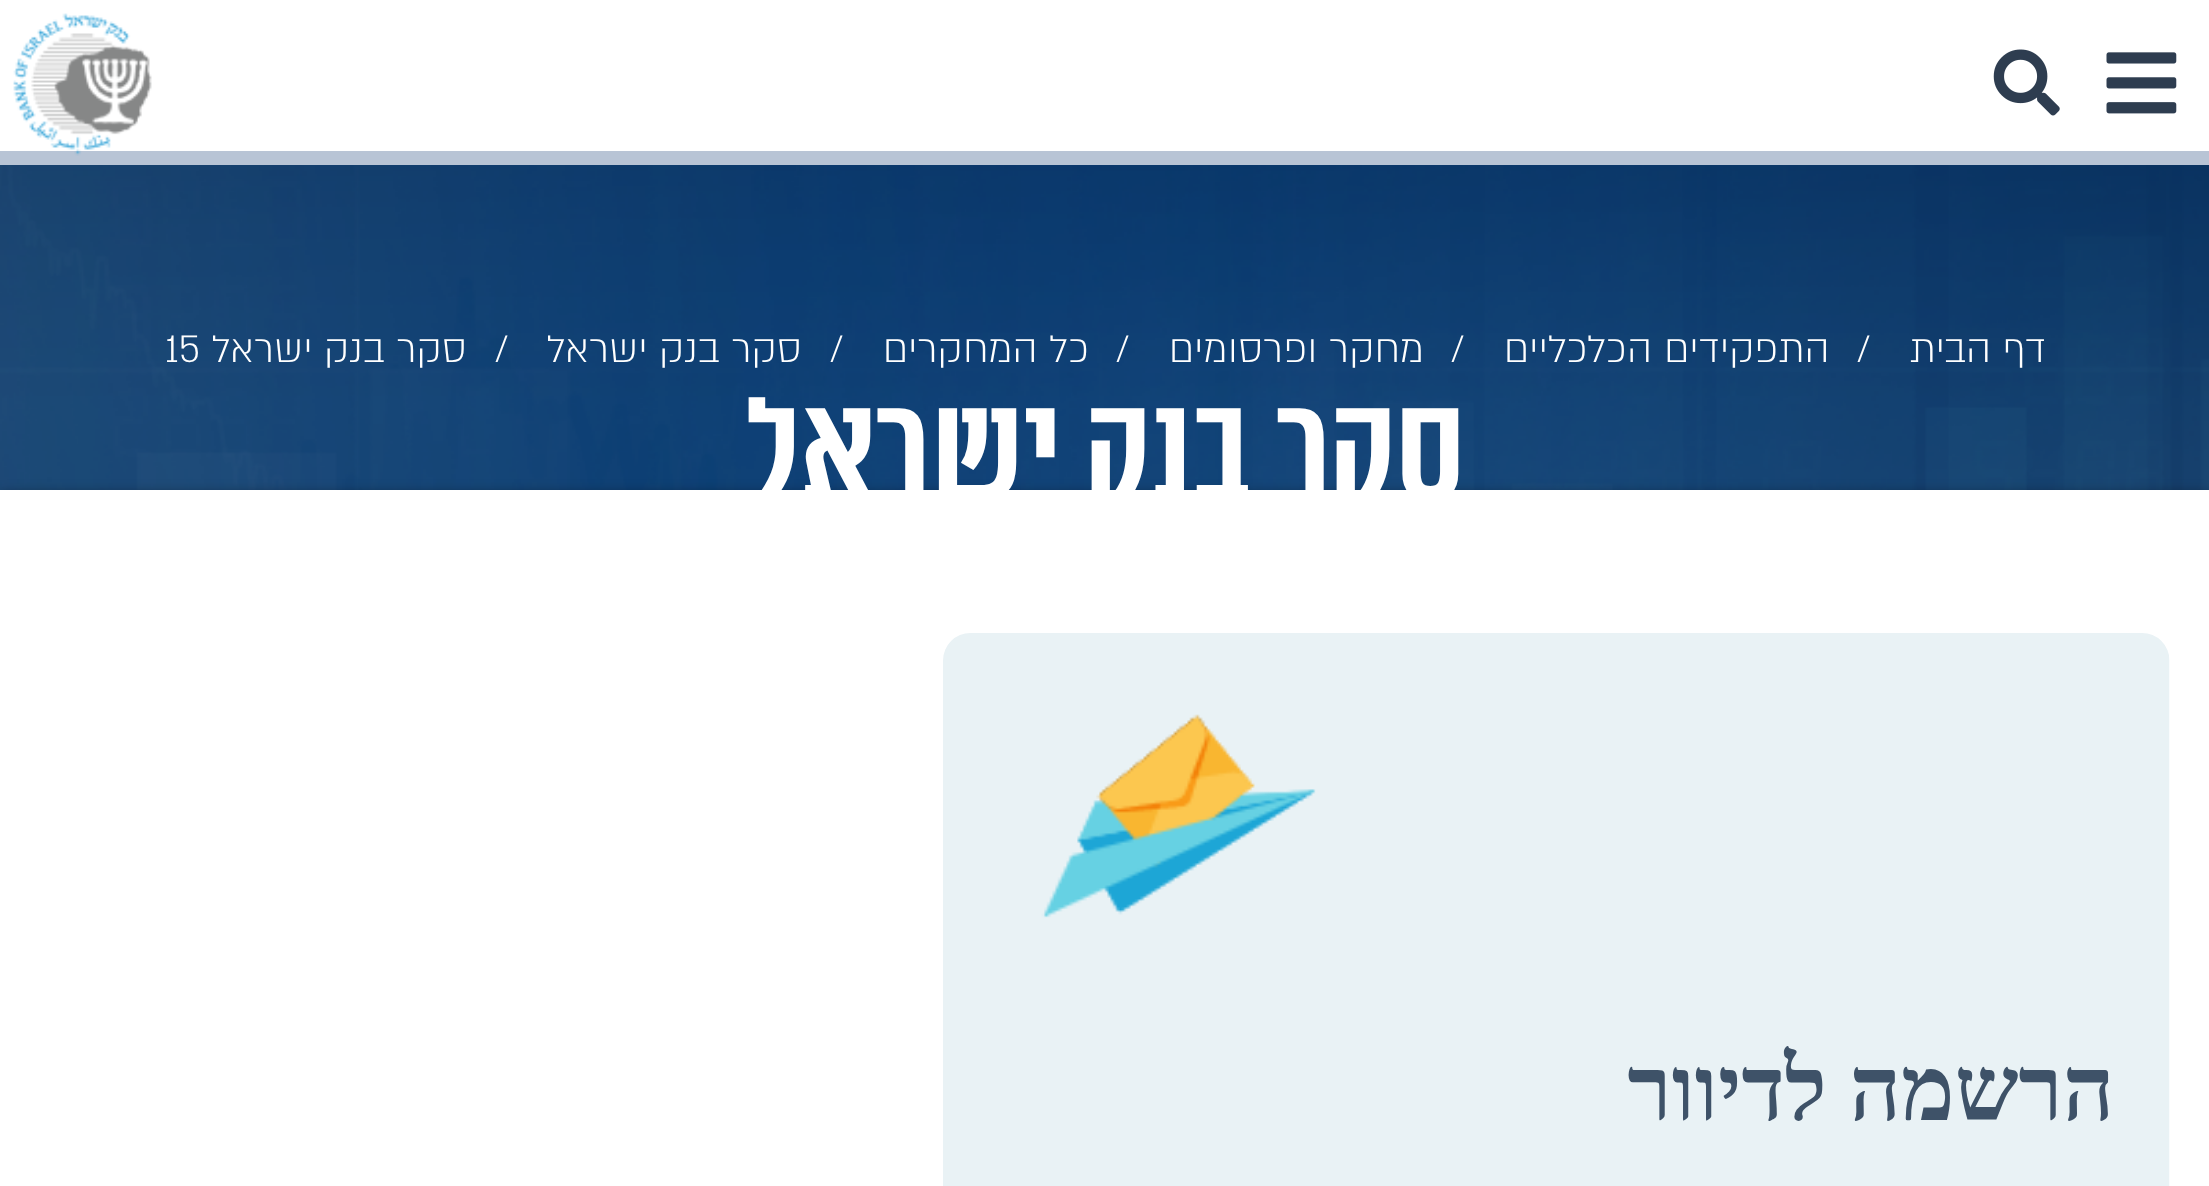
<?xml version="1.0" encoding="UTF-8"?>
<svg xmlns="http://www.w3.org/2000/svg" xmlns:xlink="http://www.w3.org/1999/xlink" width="2209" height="1186">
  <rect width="100%" height="100%" fill="#ffffff" />
  <rect y="151" width="2209" height="14" fill="#b8c4d5" />
  <image x="2106" y="52" width="71" height="62" xlink:href="image1.png" />
  <image x="1993" y="49" width="67" height="67" xlink:href="image2.png" />
  <image x="13" y="13" width="139" height="143" xlink:href="image3.png" />
  <image x="0" y="165" width="2209" height="325" xlink:href="image4.png" />
  <rect y="498" width="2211" height="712" fill="#000000" fill-opacity="0.8" filter="blur(8px)" />
  <rect y="490" width="2209" height="696" fill="#ffffff" />
  <image x="943" y="633" width="1227" height="553" xlink:href="image5.png" />
  <text x="2046" y="362" style="font-family: 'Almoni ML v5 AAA'; font-size: 44px; font-weight: 300; direction: rtl; fill: #ffffff">דף הבית</text>
  <text x="1857" y="362" style="font-family: 'Almoni ML v5 AAA'; font-size: 44px; font-weight: 300; fill: #ffffff">/</text>
  <text x="1830" y="362" style="font-family: 'Almoni ML v5 AAA'; font-size: 44px; font-weight: 300; direction: rtl; fill: #ffffff">התפקידים הכלכליים</text>
  <text x="1451" y="362" style="font-family: 'Almoni ML v5 AAA'; font-size: 44px; font-weight: 300; fill: #ffffff">/</text>
  <text x="1424" y="362" style="font-family: 'Almoni ML v5 AAA'; font-size: 44px; font-weight: 300; direction: rtl; fill: #ffffff">מחקר ופרסומים</text>
  <text x="1116" y="362" style="font-family: 'Almoni ML v5 AAA'; font-size: 44px; font-weight: 300; fill: #ffffff">/</text>
  <text x="1089" y="362" style="font-family: 'Almoni ML v5 AAA'; font-size: 44px; font-weight: 300; direction: rtl; fill: #ffffff">כל המחקרים</text>
  <text x="830" y="362" style="font-family: 'Almoni ML v5 AAA'; font-size: 44px; font-weight: 300; fill: #ffffff">/</text>
  <text x="802" y="362" style="font-family: 'Almoni ML v5 AAA'; font-size: 44px; font-weight: 300; direction: rtl; fill: #ffffff">סקר בנק ישראל</text>
  <text x="495" y="362" style="font-family: 'Almoni ML v5 AAA'; font-size: 44px; font-weight: 300; fill: #ffffff">/</text>
  <text x="467" y="362" style="font-family: 'Almoni ML v5 AAA'; font-size: 44px; font-weight: 300; direction: rtl; fill: #ffffff">סקר בנק ישראל</text>
  <text x="165" y="362" style="font-family: 'Almoni ML v5 AAA'; font-size: 44px; font-weight: 300; fill: #ffffff">15</text>
  <text x="1465" y="499" style="font-family: 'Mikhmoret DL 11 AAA'; font-size: 151.25px; font-weight: bold; direction: rtl; fill: #ffffff">סקר בנק ישראל</text>
</svg>
